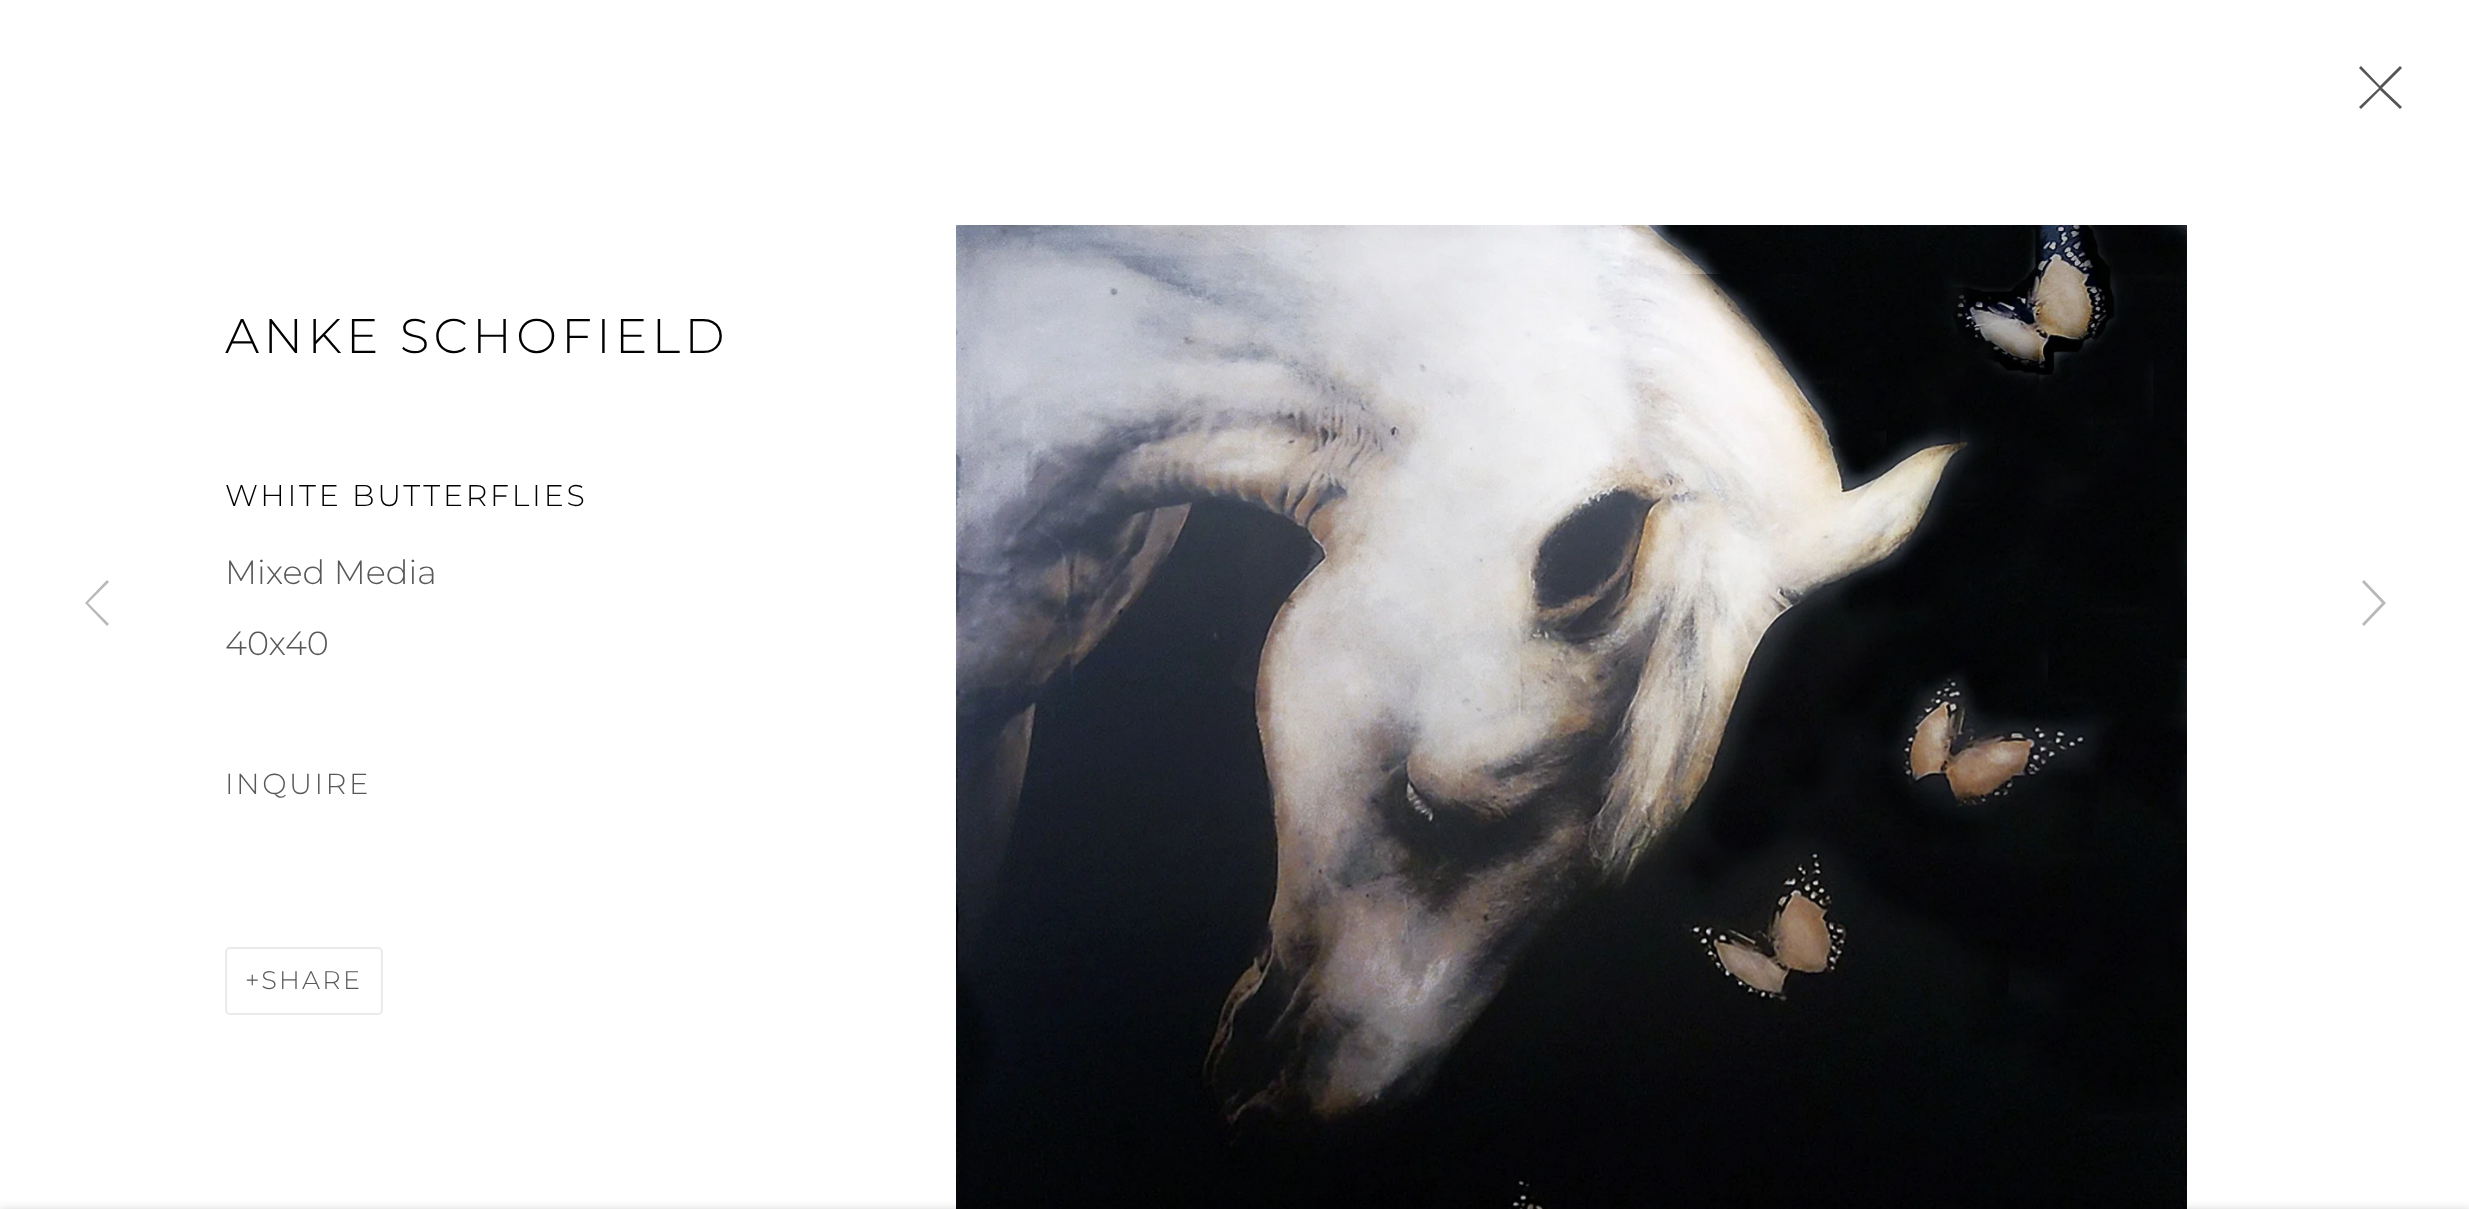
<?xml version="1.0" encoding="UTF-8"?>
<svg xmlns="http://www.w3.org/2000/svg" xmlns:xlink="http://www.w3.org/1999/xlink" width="2469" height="1209">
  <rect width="100%" height="100%" fill="#ffffff" />
  <path d="M 2402 68 l -2 -2 l -20 20 l -19 -20 l -2 2 l 20 20 l -20 19 l 2 2 l 19 -19 l 20 19 l 2 -2 l -20 -19 z" fill="#555555" />
  <rect x="226" y="948" width="156" height="66" rx="4" fill="none" stroke="#ebebeb" stroke-width="2" />
  <image x="956" y="225" width="1231" height="984" xlink:href="image1.png" />
  <path d="M 87 605 l 20 21 l 2 -2 l -21 -21 l 21 -21 l -2 -2 l -22 23 z" fill="#b9b9b9" />
  <path d="M 2386 603 l -22 -23 l -2 2 l 20 21 l -20 21 l 2 2 z" fill="#b9b9b9" />
  <rect y="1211" width="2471" height="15" fill="#000000" fill-opacity="0.23" filter="blur(5.5px)" />
  <text x="225" y="353" style="font-family: Montserrat; font-size: 48.5px; font-weight: 300; letter-spacing: 4.4px; fill: #010101">ANKE SCHOFIELD</text>
  <text x="225" y="506" style="font-family: Montserrat; font-size: 30px; font-weight: 300; letter-spacing: 2.75px; fill: #010101">WHITE BUTTERFLIES</text>
  <text x="225" y="584" style="font-family: Montserrat; font-size: 33.5px; font-weight: 300; fill: #585858">Mixed Media</text>
  <text x="225" y="655" style="font-family: Montserrat; font-size: 33.5px; font-weight: 300; fill: #585858">40x40</text>
  <text x="225" y="794" style="font-family: Montserrat; font-size: 29px; font-weight: 300; letter-spacing: 2.5px; fill: #585858">INQUIRE</text>
  <text x="245" y="989" style="font-family: Montserrat; font-size: 25.5px; font-weight: 300; letter-spacing: 2.25px; fill: #585858">+SHARE</text>
</svg>
